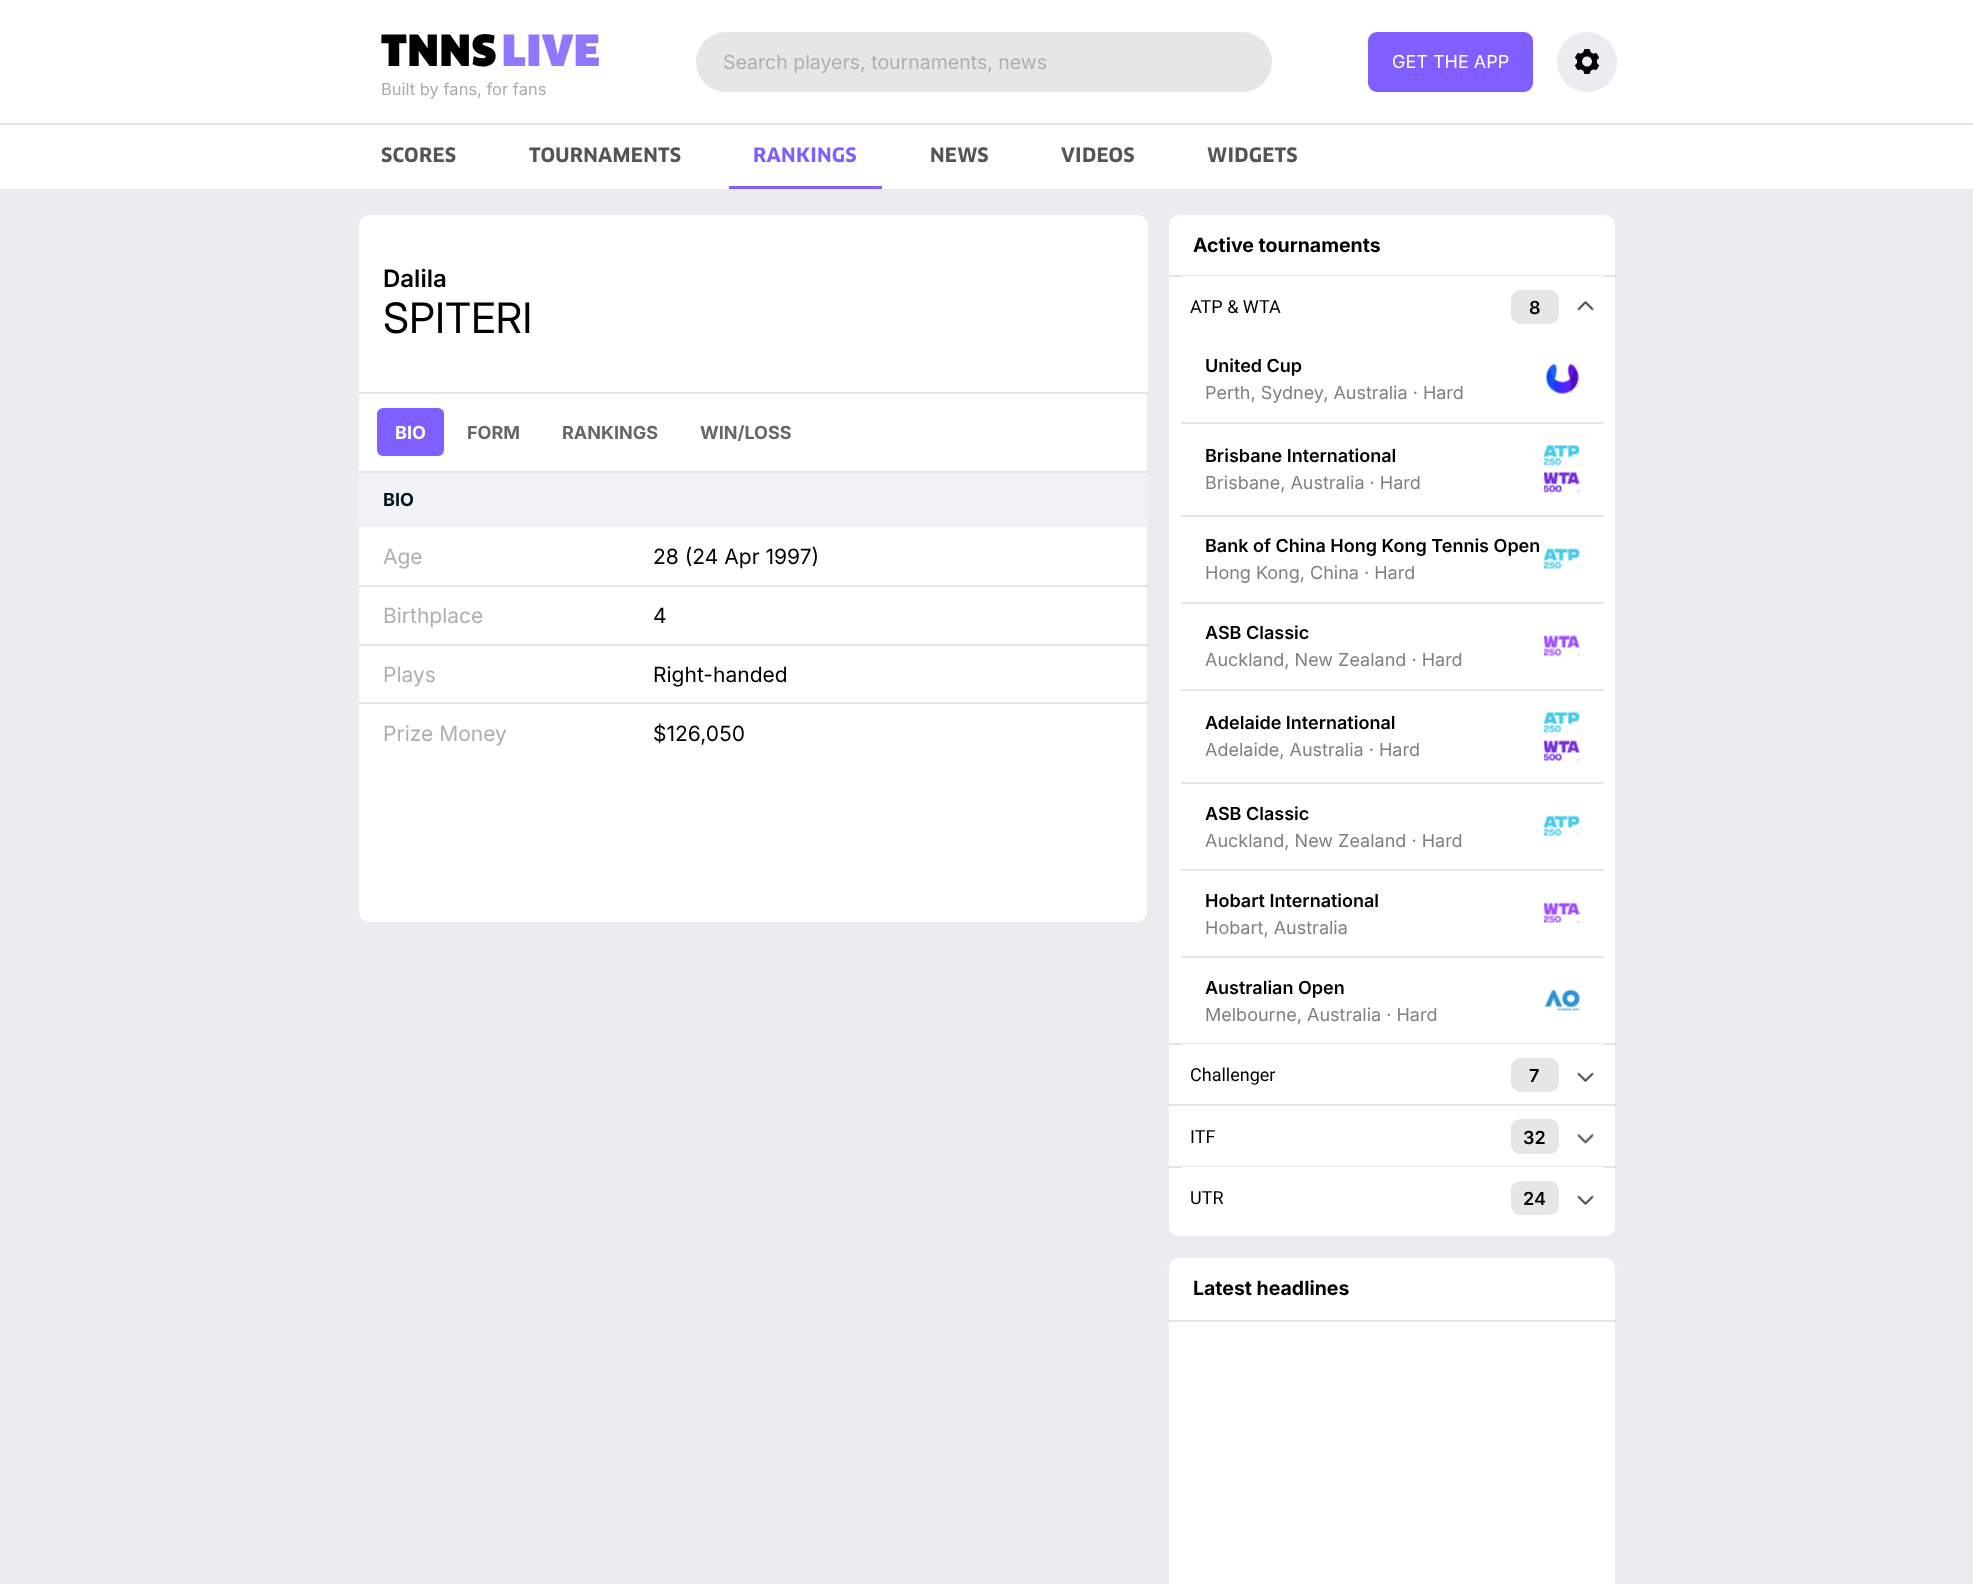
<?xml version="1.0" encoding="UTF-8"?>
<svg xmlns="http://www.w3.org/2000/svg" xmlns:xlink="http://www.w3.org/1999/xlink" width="1973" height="1584">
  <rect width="100%" height="100%" fill="#eaecef" />
  <rect width="1973" height="189" fill="#ffffff" />
  <rect x="696" y="32" width="576" height="60" rx="30" fill="#e6e6e6" />
  <rect x="1368" y="32" width="165" height="60" rx="9" fill="#805eff" />
  <circle cx="1587" cy="62" r="30" fill="#eaecf2" />
  <image x="1574" y="49" width="26" height="25" xlink:href="image1.png" />
  <rect y="123" width="1973" height="2" fill="#e6e6e6" />
  <rect x="729" y="186" width="153" height="3" fill="#805eff" />
  <rect x="358" y="214" width="790" height="709" rx="11" fill="#ffffff" stroke="#eaecf2" stroke-width="2" />
  <path d="M 370 215 h 767 c 6 0 11 5 11 11 v 167 h -789 v -167 c 0 -6 5 -11 11 -11 z" fill="#ffffff" />
  <rect x="359" y="392" width="789" height="2" fill="#000000" fill-opacity="0.1" />
  <rect x="359" y="471" width="789" height="2" fill="#000000" fill-opacity="0.1" />
  <rect x="377" y="408" width="67" height="48" rx="6" fill="#805eff" />
  <rect x="359" y="473" width="789" height="54" fill="#f0f2f8" />
  <rect x="359" y="585" width="789" height="2" fill="#000000" fill-opacity="0.1" />
  <rect x="359" y="644" width="789" height="2" fill="#000000" fill-opacity="0.1" />
  <rect x="359" y="702" width="789" height="2" fill="#000000" fill-opacity="0.1" />
  <rect x="1168" y="214" width="448" height="1023" rx="11" fill="#ffffff" stroke="#eaecf2" stroke-width="2" />
  <rect x="1169" y="275" width="447" height="2" fill="#000000" fill-opacity="0.1" />
  <rect x="1181" y="276" width="423" height="1" fill="#ffffff" />
  <rect x="1511" y="290" width="48" height="34" rx="9" fill="#e6e6e6" />
  <image x="1577" y="301" width="18" height="10" xlink:href="image2.png" />
  <image x="1546" y="363" width="34" height="31" xlink:href="image3.png" />
  <rect x="1181" y="422" width="423" height="2" fill="#e6e6e6" />
  <image x="1544" y="445" width="36" height="21" xlink:href="image4.png" />
  <image x="1544" y="472" width="36" height="21" xlink:href="image5.png" />
  <rect x="1181" y="515" width="423" height="2" fill="#e6e6e6" />
  <image x="1544" y="548" width="36" height="21" xlink:href="image6.png" />
  <rect x="1181" y="602" width="423" height="2" fill="#e6e6e6" />
  <image x="1544" y="635" width="36" height="21" xlink:href="image7.png" />
  <rect x="1181" y="689" width="423" height="2" fill="#e6e6e6" />
  <image x="1544" y="712" width="36" height="21" xlink:href="image4.png" />
  <image x="1544" y="740" width="36" height="21" xlink:href="image8.png" />
  <rect x="1181" y="782" width="423" height="2" fill="#e6e6e6" />
  <image x="1544" y="815" width="36" height="21" xlink:href="image9.png" />
  <rect x="1181" y="869" width="423" height="2" fill="#e6e6e6" />
  <image x="1544" y="902" width="36" height="21" xlink:href="image10.png" />
  <rect x="1181" y="956" width="423" height="2" fill="#e6e6e6" />
  <image x="1544" y="989" width="36" height="23" xlink:href="image11.png" />
  <rect x="1169" y="1043" width="447" height="2" fill="#000000" fill-opacity="0.1" />
  <rect x="1181" y="1044" width="423" height="1" fill="#ffffff" />
  <rect x="1511" y="1058" width="48" height="34" rx="9" fill="#e6e6e6" />
  <image x="1577" y="1072" width="17" height="10" xlink:href="image12.png" />
  <rect x="1169" y="1104" width="447" height="2" fill="#000000" fill-opacity="0.1" />
  <rect x="1511" y="1119" width="48" height="35" rx="9" fill="#e6e6e6" />
  <image x="1577" y="1133" width="17" height="11" xlink:href="image13.png" />
  <rect x="1169" y="1166" width="447" height="2" fill="#000000" fill-opacity="0.1" />
  <rect x="1181" y="1167" width="423" height="1" fill="#ffffff" />
  <rect x="1511" y="1181" width="48" height="34" rx="9" fill="#e6e6e6" />
  <image x="1577" y="1195" width="17" height="10" xlink:href="image12.png" />
  <path d="M 1179 1256 h 426 c 6.5 0 12 5.5 12 12 v 316 h -450 v -316 c 0 -6.5 5.5 -12 12 -12 z" fill="#ffffff" />
  <rect x="1168" y="1257" width="448" height="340" rx="11" fill="none" stroke="#eaecf2" stroke-width="2" />
  <rect x="1169" y="1320" width="447" height="2" fill="#000000" fill-opacity="0.1" />
  <text x="381" y="66" style="font-family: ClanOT; font-size: 42px; font-weight: 900; letter-spacing: 1px; fill: #000000">TNNS</text>
  <text x="502" y="66" style="font-family: ClanOT; font-size: 42px; font-weight: 900; letter-spacing: 1px; fill: #9376ff">LIVE</text>
  <text x="381" y="95" style="font-family: 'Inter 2'; font-size: 16.5px; fill: #ababab">Built by fans, for fans</text>
  <text x="723" y="69" style="font-family: 'Inter 2'; font-size: 19.5px; fill: #aab0b4">Search players, tournaments, news</text>
  <text x="1392" y="68" style="font-family: 'Inter 2'; font-size: 18px; fill: #ffffff">GET THE APP</text>
  <text x="381" y="162" style="font-family: ClanOT; font-size: 19.5px; font-weight: bold; letter-spacing: 0.25px; fill: #545454">SCORES</text>
  <text x="529" y="162" style="font-family: ClanOT; font-size: 19.5px; font-weight: bold; letter-spacing: 0.25px; fill: #545454">TOURNAMENTS</text>
  <text x="753" y="162" style="font-family: ClanOT; font-size: 19.5px; font-weight: bold; letter-spacing: 0.25px; fill: #805eff">RANKINGS</text>
  <text x="930" y="162" style="font-family: ClanOT; font-size: 19.5px; font-weight: bold; letter-spacing: 0.25px; fill: #545454">NEWS</text>
  <text x="1061" y="162" style="font-family: ClanOT; font-size: 19.5px; font-weight: bold; letter-spacing: 0.25px; fill: #545454">VIDEOS</text>
  <text x="1207" y="162" style="font-family: ClanOT; font-size: 19.5px; font-weight: bold; letter-spacing: 0.25px; fill: #545454">WIDGETS</text>
  <text x="383" y="287" style="font-family: Inter; font-size: 24px; font-weight: 600; fill: #000000">Dalila</text>
  <text x="383" y="333" style="font-family: Inter; font-size: 42px; fill: #000000">SPITERI</text>
  <text x="395" y="439" style="font-family: Inter; font-size: 18px; font-weight: bold; fill: #ffffff">BIO</text>
  <text x="467" y="439" style="font-family: Inter; font-size: 18px; font-weight: bold; fill: #666666">FORM</text>
  <text x="562" y="439" style="font-family: Inter; font-size: 18px; font-weight: bold; fill: #666666">RANKINGS</text>
  <text x="700" y="439" style="font-family: Inter; font-size: 18px; font-weight: bold; fill: #666666">WIN/LOSS</text>
  <text x="383" y="506" style="font-family: Inter; font-size: 18px; font-weight: bold; fill: #00131e">BIO</text>
  <text x="383" y="564" style="font-family: 'Inter 2'; font-size: 21px; fill: #aab0b4">Age</text>
  <text x="653" y="564" style="font-family: 'Inter 2'; font-size: 21px; fill: #000000">28 (24 Apr 1997)</text>
  <text x="383" y="623" style="font-family: 'Inter 2'; font-size: 21px; fill: #aab0b4">Birthplace</text>
  <text x="653" y="623" style="font-family: 'Inter 2'; font-size: 21px; fill: #000000">4</text>
  <text x="383" y="682" style="font-family: 'Inter 2'; font-size: 21px; fill: #aab0b4">Plays</text>
  <text x="653" y="682" style="font-family: 'Inter 2'; font-size: 21px; fill: #000000">Right-handed</text>
  <text x="383" y="741" style="font-family: 'Inter 2'; font-size: 21px; fill: #aab0b4">Prize Money</text>
  <text x="653" y="741" style="font-family: 'Inter 2'; font-size: 21px; fill: #000000">$126,050</text>
  <text x="1193" y="252" style="font-family: Inter; font-size: 19.5px; font-weight: bold; fill: #000000">Active tournaments</text>
  <text x="1190" y="313" style="font-family: Roboto; font-size: 18px; fill: #000000">ATP &amp; WTA</text>
  <text x="1529" y="314" style="font-family: Inter; font-size: 18px; font-weight: 600; fill: #000000">8</text>
  <text x="1205" y="372" style="font-family: Inter; font-size: 18px; font-weight: 600; fill: #000000">United Cup</text>
  <text x="1205" y="399" style="font-family: 'Inter 2'; font-size: 18px; fill: #808080">Perth, Sydney, Australia · Hard</text>
  <text x="1205" y="462" style="font-family: Inter; font-size: 18px; font-weight: 600; fill: #000000">Brisbane International</text>
  <text x="1205" y="489" style="font-family: 'Inter 2'; font-size: 18px; fill: #808080">Brisbane, Australia · Hard</text>
  <text x="1205" y="552" style="font-family: Inter; font-size: 18px; font-weight: 600; fill: #000000">Bank of China Hong Kong Tennis Open</text>
  <text x="1205" y="579" style="font-family: 'Inter 2'; font-size: 18px; fill: #808080">Hong Kong, China · Hard</text>
  <text x="1205" y="639" style="font-family: Inter; font-size: 18px; font-weight: 600; fill: #000000">ASB Classic</text>
  <text x="1205" y="666" style="font-family: 'Inter 2'; font-size: 18px; fill: #808080">Auckland, New Zealand · Hard</text>
  <text x="1205" y="729" style="font-family: Inter; font-size: 18px; font-weight: 600; fill: #000000">Adelaide International</text>
  <text x="1205" y="756" style="font-family: 'Inter 2'; font-size: 18px; fill: #808080">Adelaide, Australia · Hard</text>
  <text x="1205" y="820" style="font-family: Inter; font-size: 18px; font-weight: 600; fill: #000000">ASB Classic</text>
  <text x="1205" y="847" style="font-family: 'Inter 2'; font-size: 18px; fill: #808080">Auckland, New Zealand · Hard</text>
  <text x="1205" y="907" style="font-family: Inter; font-size: 18px; font-weight: 600; fill: #000000">Hobart International</text>
  <text x="1205" y="934" style="font-family: 'Inter 2'; font-size: 18px; fill: #808080">Hobart, Australia</text>
  <text x="1205" y="994" style="font-family: Inter; font-size: 18px; font-weight: 600; fill: #000000">Australian Open</text>
  <text x="1205" y="1021" style="font-family: 'Inter 2'; font-size: 18px; fill: #808080">Melbourne, Australia · Hard</text>
  <text x="1190" y="1081" style="font-family: Roboto; font-size: 18px; fill: #000000">Challenger</text>
  <text x="1529" y="1082" style="font-family: Inter; font-size: 18px; font-weight: 600; fill: #000000">7</text>
  <text x="1190" y="1143" style="font-family: Roboto; font-size: 18px; fill: #000000">ITF</text>
  <text x="1523" y="1144" style="font-family: Inter; font-size: 18px; font-weight: 600; fill: #000000">32</text>
  <text x="1190" y="1204" style="font-family: Roboto; font-size: 18px; fill: #000000">UTR</text>
  <text x="1523" y="1205" style="font-family: Inter; font-size: 18px; font-weight: 600; fill: #000000">24</text>
  <text x="1193" y="1295" style="font-family: Inter; font-size: 19.5px; font-weight: bold; fill: #000000">Latest headlines</text>
</svg>
